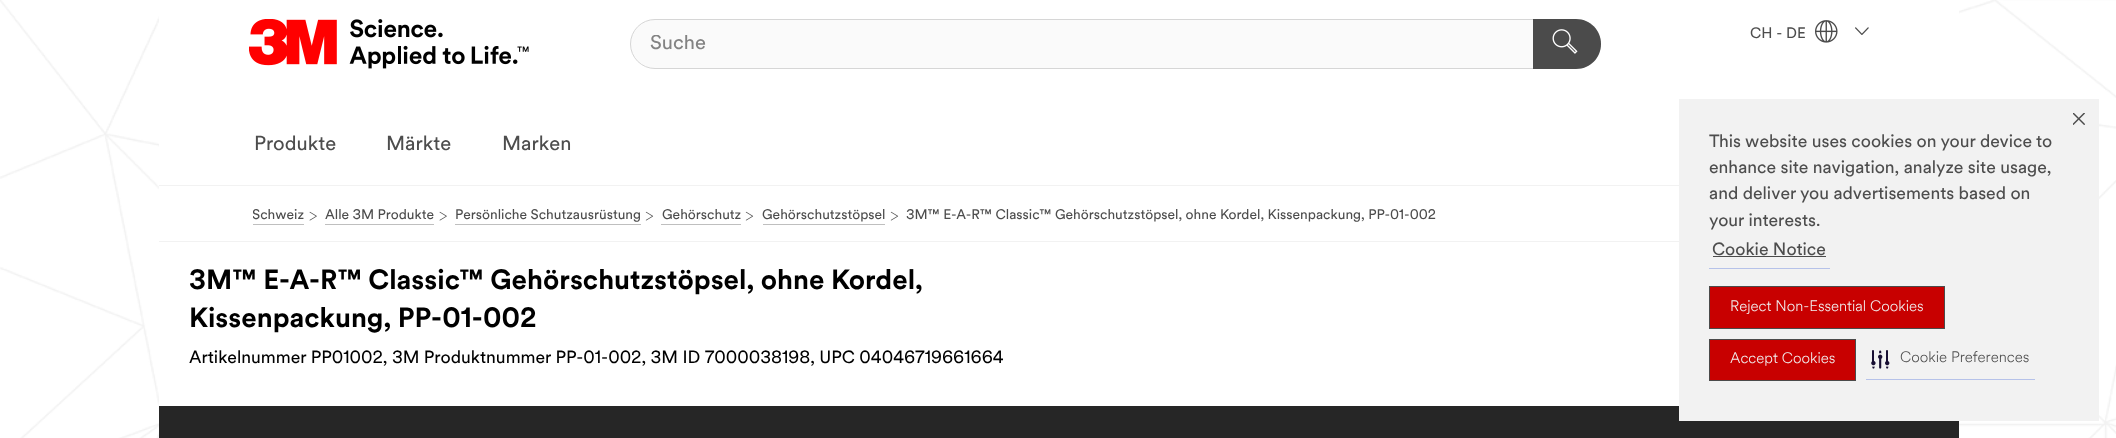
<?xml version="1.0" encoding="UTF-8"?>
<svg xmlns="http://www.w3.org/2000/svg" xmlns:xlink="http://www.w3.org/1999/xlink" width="2116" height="438">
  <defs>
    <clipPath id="clip1"><rect x="650" y="35" width="870" height="20" /></clipPath>
    <clipPath id="clip2"><rect x="253" y="199" width="1612" height="36" /></clipPath>
  </defs>
  <rect width="100%" height="100%" fill="#ffffff" />
  <image x="0" y="0" width="2116" height="438" xlink:href="image1.png" />
  <rect x="159" width="1800" height="406" fill="#ffffff" />
  <rect x="159" y="185" width="1520" height="1" fill="#f2f2f2" />
  <image x="1815" y="20" width="23" height="23" xlink:href="image2.png" />
  <image x="1855" y="27" width="14" height="8" xlink:href="image3.png" />
  <image x="249" y="19" width="280" height="50" xlink:href="image4.png" />
  <rect x="630.5" y="19.5" width="970" height="49" rx="24.5" fill="#fafafa" stroke="#d6d6d6" />
  <path d="M 1533 19 h 43 c 14 0 25 11 25 25 c 0 14 -11 25 -25 25 h -43 z" fill="#4b4b4b" />
  <image x="1552" y="29" width="26" height="25" xlink:href="image5.png" />
  <rect x="159" y="241" width="1520" height="1" fill="#f2f2f2" />
  <rect x="253" y="224" width="51" height="1" fill="#bfbfbf" />
  <image x="309" y="211" width="8" height="10" xlink:href="image6.png" />
  <rect x="325" y="224" width="109" height="1" fill="#bfbfbf" />
  <image x="439" y="211" width="8" height="10" xlink:href="image6.png" />
  <rect x="455" y="224" width="186" height="1" fill="#bfbfbf" />
  <image x="645" y="211" width="9" height="10" xlink:href="image7.png" />
  <rect x="661" y="224" width="80" height="1" fill="#bfbfbf" />
  <image x="745" y="211" width="9" height="10" xlink:href="image7.png" />
  <rect x="763" y="224" width="122" height="1" fill="#bfbfbf" />
  <image x="890" y="211" width="9" height="10" xlink:href="image7.png" />
  <rect x="159" y="406" width="1800" height="32" fill="#262626" />
  <rect x="1679" y="99" width="420" height="322" fill="#f2f2f2" />
  <rect x="1709" y="268" width="121" height="1" fill="#b6c2e9" />
  <rect x="1713" y="256" width="113" height="1" fill="#4b4b4b" />
  <image x="2073" y="113" width="12" height="12" xlink:href="image8.png" />
  <rect x="1709.5" y="286.5" width="235" height="42" fill="#c80000" stroke="#4b4b4b" />
  <rect x="1709.5" y="339.5" width="146" height="41" fill="#c80000" stroke="#4b4b4b" />
  <rect x="1866" y="379" width="169" height="1" fill="#b6c2e9" />
  <image x="1871" y="350" width="19" height="19" xlink:href="image9.png" />
  <text x="1750" y="38" style="font-family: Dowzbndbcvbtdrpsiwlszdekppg; font-size: 15px; fill: #4d4d4d">CH - DE</text>
  <text x="254" y="150" style="font-family: Dowzbndbcvbtdrpsiwlszdekppg; font-size: 20px; fill: #4d4d4d">Produkte</text>
  <text x="386" y="150" style="font-family: Dowzbndbcvbtdrpsiwlszdekppg; font-size: 20px; fill: #4d4d4d">Märkte</text>
  <text x="502" y="150" style="font-family: Dowzbndbcvbtdrpsiwlszdekppg; font-size: 20px; fill: #4d4d4d">Marken</text>
  <g clip-path="url(#clip1)">
    <text x="650" y="49" style="font-family: Dowzbndbcvbtdrpsiwlszdekppg; font-size: 20px; fill: #838383">Suche</text>
  </g>
  <g clip-path="url(#clip2)">
    <text x="252" y="219" style="font-family: Dowzbndbcvbtdrpsiwlszdekppg; font-size: 13.75px; fill: #4d4d4d">Schweiz</text>
  </g>
  <text x="325" y="219" style="font-family: Dowzbndbcvbtdrpsiwlszdekppg; font-size: 13.75px; fill: #4d4d4d">Alle 3M Produkte</text>
  <text x="455" y="219" style="font-family: Dowzbndbcvbtdrpsiwlszdekppg; font-size: 13.75px; fill: #4d4d4d">Persönliche Schutzausrüstung</text>
  <text x="662" y="219" style="font-family: Dowzbndbcvbtdrpsiwlszdekppg; font-size: 13.75px; fill: #4d4d4d">Gehörschutz</text>
  <text x="762" y="219" style="font-family: Dowzbndbcvbtdrpsiwlszdekppg; font-size: 13.75px; fill: #4d4d4d">Gehörschutzstöpsel</text>
  <text x="906" y="219" style="font-family: Dowzbndbcvbtdrpsiwlszdekppg; font-size: 13.75px; fill: #4d4d4d">3M™ E-A-R™ Classic™ Gehörschutzstöpsel, ohne Kordel, Kissenpackung, PP-01-002</text>
  <text x="189" y="289" style="font-family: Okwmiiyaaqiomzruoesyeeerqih; font-size: 27.5px; font-weight: bold; fill: #000000">3M™ E-A-R™ Classic™ Gehörschutzstöpsel, ohne Kordel,</text>
  <text x="189" y="327" style="font-family: Okwmiiyaaqiomzruoesyeeerqih; font-size: 27.5px; font-weight: bold; fill: #000000">Kissenpackung, PP-01-002</text>
  <text x="189" y="363" style="font-family: Dowzbndbcvbtdrpsiwlszdekppg; font-size: 17.5px; fill: #000000">Artikelnummer PP01002, 3M Produktnummer PP-01-002, 3M ID 7000038198, UPC 04046719661664</text>
  <text x="1709" y="147" style="font-family: Dowzbndbcvbtdrpsiwlszdekppg; font-size: 17.5px; fill: #4d4d4d">This website uses cookies on your device to</text>
  <text x="1709" y="173" style="font-family: Dowzbndbcvbtdrpsiwlszdekppg; font-size: 17.5px; fill: #4d4d4d">enhance site navigation, analyze site usage,</text>
  <text x="1709" y="199" style="font-family: Dowzbndbcvbtdrpsiwlszdekppg; font-size: 17.5px; fill: #4d4d4d">and deliver you advertisements based on</text>
  <text x="1709" y="226" style="font-family: Dowzbndbcvbtdrpsiwlszdekppg; font-size: 17.5px; fill: #4d4d4d">your interests.</text>
  <text x="1712" y="255" style="font-family: Dowzbndbcvbtdrpsiwlszdekppg; font-size: 17.5px; fill: #4d4d4d">Cookie Notice</text>
  <text x="1730" y="311" style="font-family: '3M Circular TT'; font-size: 15px; font-weight: 300; fill: #f2f2f2">Reject Non-Essential Cookies</text>
  <text x="1730" y="363" style="font-family: '3M Circular TT'; font-size: 15px; font-weight: 300; fill: #f2f2f2">Accept Cookies</text>
  <text x="1900" y="362" style="font-family: '3M Circular TT'; font-size: 15px; font-weight: 300; fill: #4d4d4d">Cookie Preferences</text>
</svg>
